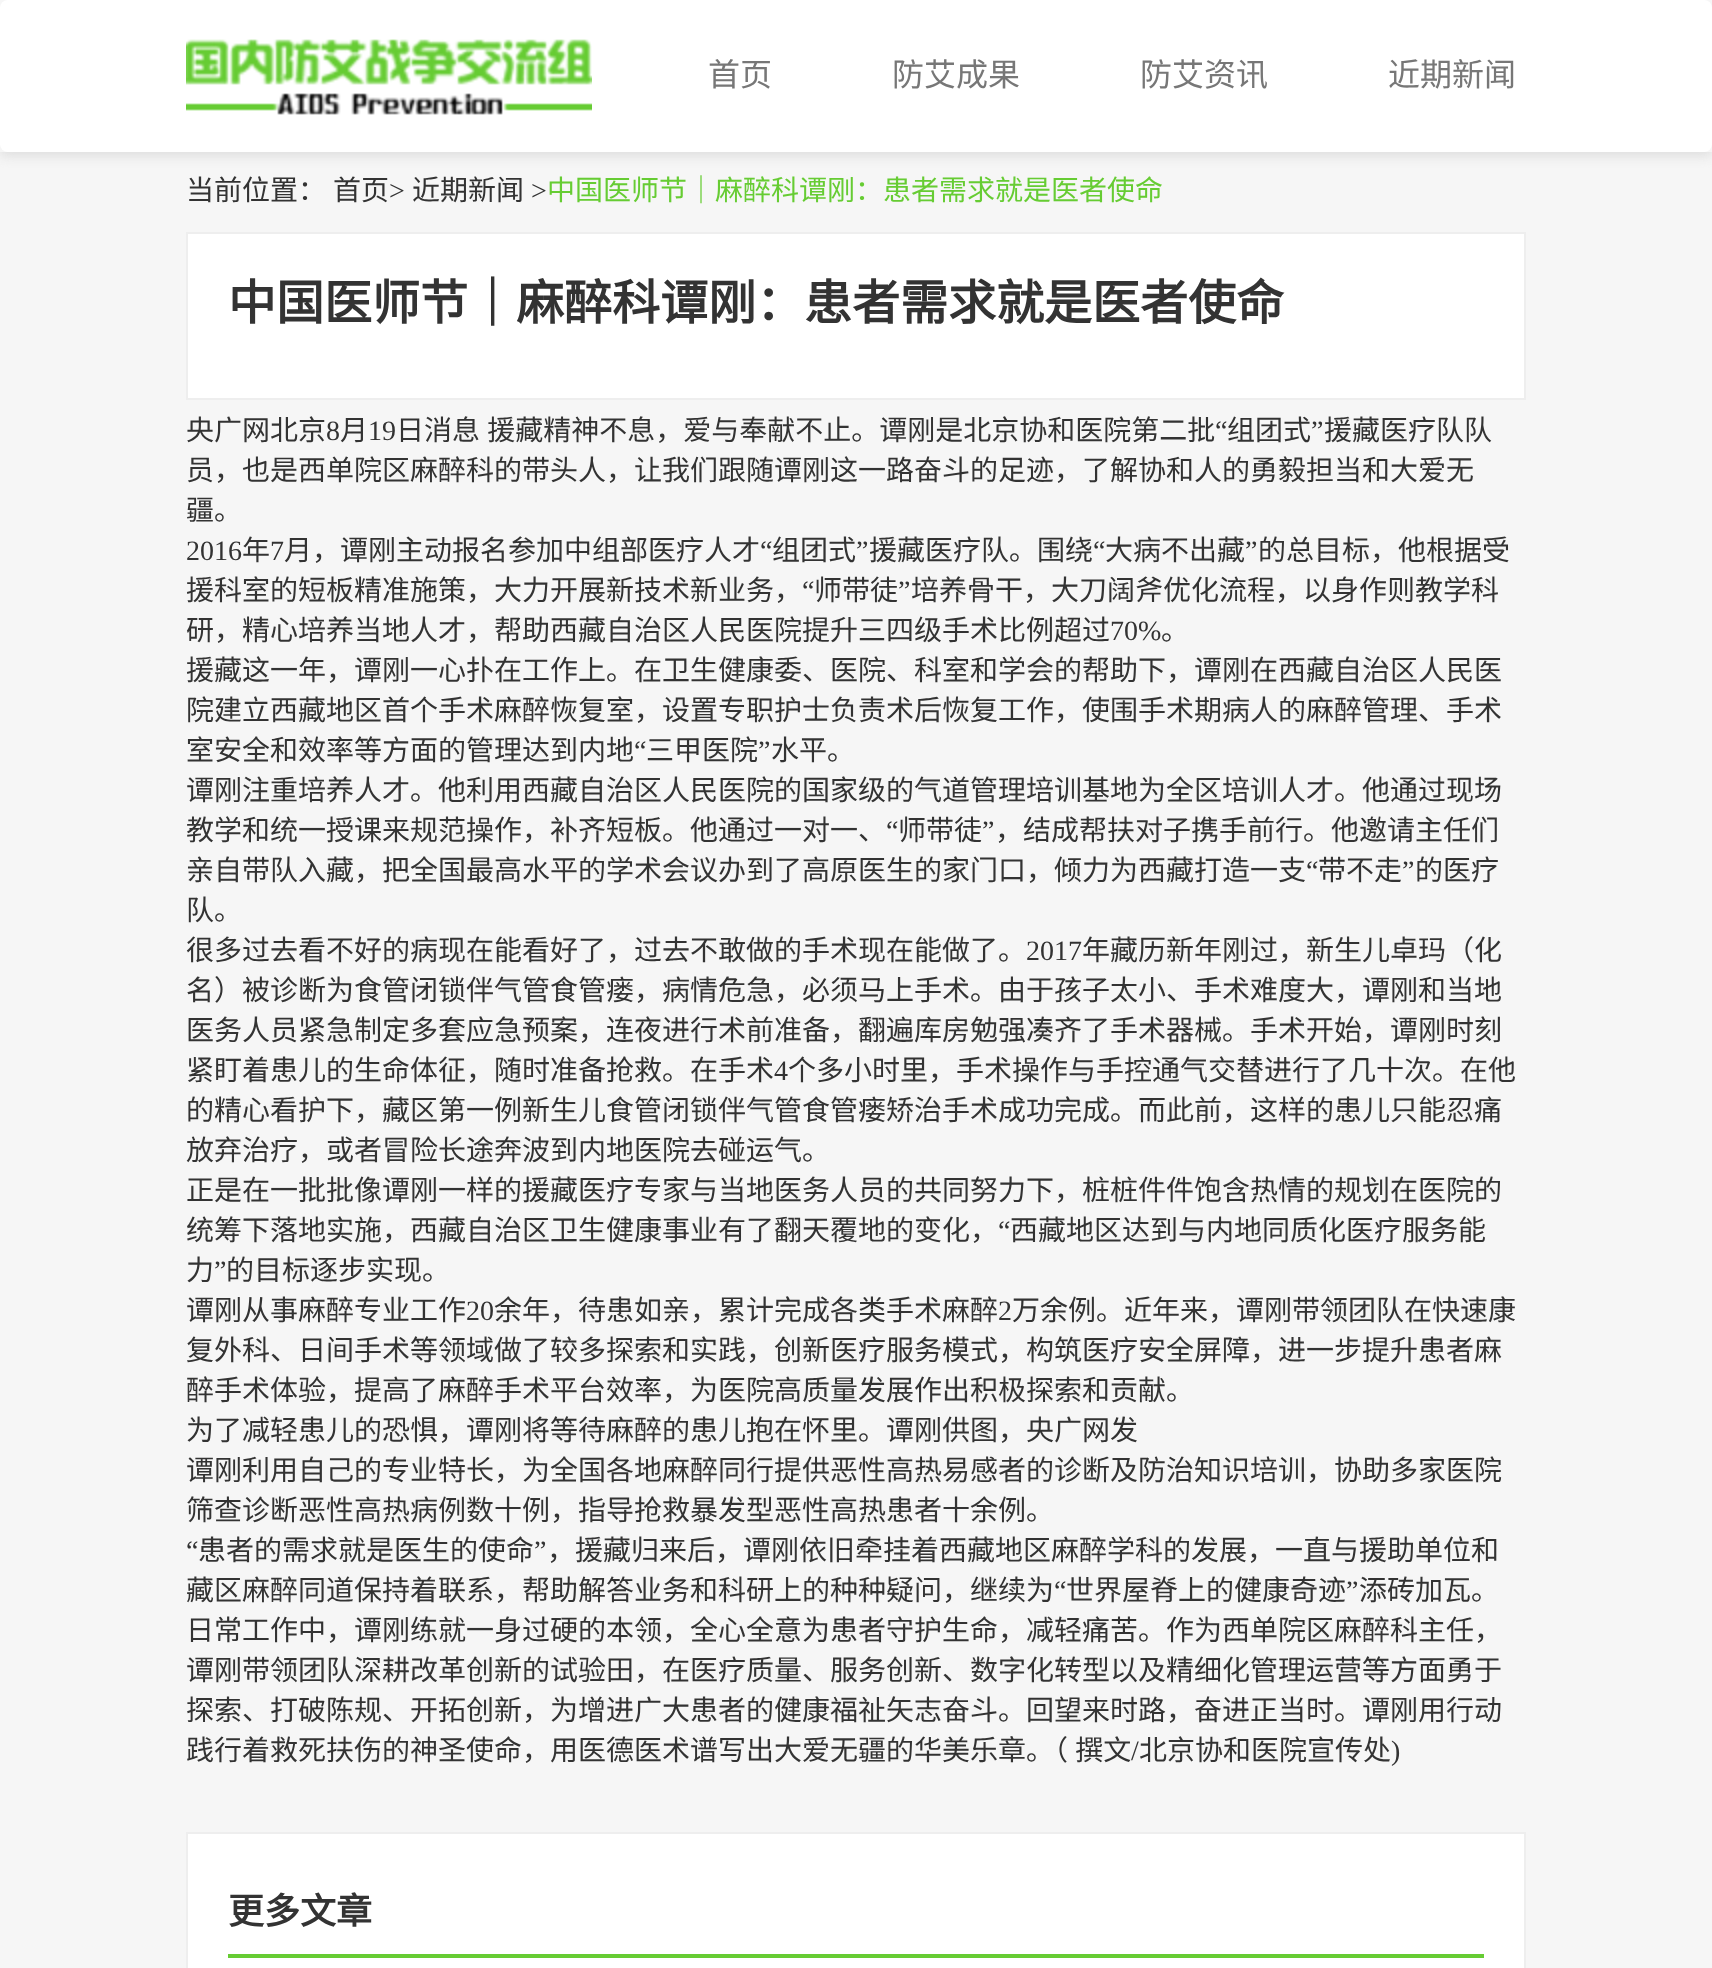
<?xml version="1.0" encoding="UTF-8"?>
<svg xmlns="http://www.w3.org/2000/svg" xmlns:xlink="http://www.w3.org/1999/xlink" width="1712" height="1968">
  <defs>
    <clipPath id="clip1"><rect x="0" y="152" width="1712" height="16" /></clipPath>
  </defs>
  <rect width="100%" height="100%" fill="#f6f6f6" />
  <g clip-path="url(#clip1)">
    <rect y="4" width="1712" height="152" fill="#dddddd" filter="blur(6px)" />
  </g>
  <rect width="1712" height="152" rx="8" fill="#ffffff" />
  <image x="186" y="39" width="406" height="76" xlink:href="image1.png" />
  <rect x="187" y="233" width="1338" height="166" fill="#ffffff" stroke="#eeeeee" stroke-width="2" />
  <rect x="187" y="1833" width="1338" height="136" fill="#ffffff" stroke="#eeeeee" stroke-width="2" />
  <rect x="228" y="1954" width="1256" height="4" fill="#66cc33" />
  <text x="708" y="86" style="font-family: Noto Sans CJK SC; font-size: 32px; fill: #777777">首页</text>
  <text x="892" y="86" style="font-family: Noto Sans CJK SC; font-size: 32px; fill: #777777">防艾成果</text>
  <text x="1140" y="86" style="font-family: Noto Sans CJK SC; font-size: 32px; fill: #777777">防艾资讯</text>
  <text x="1388" y="86" style="font-family: Noto Sans CJK SC; font-size: 32px; fill: #777777">近期新闻</text>
  <text x="186" y="200" style="font-family: Noto Sans CJK SC; font-size: 28px; fill: #333333">当前位置：</text>
  <text x="333" y="200" style="font-family: Noto Sans CJK SC; font-size: 28px; fill: #333333">首页</text>
  <text x="389" y="200" style="font-family: Liberation Serif; font-size: 28px; fill: #333333">&gt;</text>
  <text x="412" y="200" style="font-family: Noto Sans CJK SC; font-size: 28px; fill: #333333">近期新闻</text>
  <text x="531" y="200" style="font-family: Liberation Serif; font-size: 28px; fill: #333333">&gt;</text>
  <text x="547" y="200" style="font-family: Noto Sans CJK SC; font-size: 28px; fill: #66cc33">中国医师节｜麻醉科谭刚：患者需求就是医者使命</text>
  <text x="228" y="320" style="font-family: Noto Sans CJK SC; font-size: 48px; font-weight: bold; fill: #333333">中国医师节｜麻醉科谭刚：患者需求就是医者使命</text>
  <text x="186" y="440" style="font-family: Noto Sans CJK SC; font-size: 28px; fill: #333333">央广网北京</text>
  <text x="326" y="440" style="font-family: Liberation Serif; font-size: 28px; fill: #333333">8</text>
  <text x="340" y="440" style="font-family: Noto Sans CJK SC; font-size: 28px; fill: #333333">月</text>
  <text x="368" y="440" style="font-family: Liberation Serif; font-size: 28px; fill: #333333">19</text>
  <text x="396" y="440" word-spacing="1" style="font-family: Noto Sans CJK SC; font-size: 28px; fill: #333333">日消息 援藏精神不息，爱与奉献不止。谭刚是北京协和医院第二批</text>
  <text x="1215" y="440" style="font-family: Liberation Serif; font-size: 28px; fill: #333333">“</text>
  <text x="1227" y="440" style="font-family: Noto Sans CJK SC; font-size: 28px; fill: #333333">组团式</text>
  <text x="1311" y="440" style="font-family: Liberation Serif; font-size: 28px; fill: #333333">”</text>
  <text x="1324" y="440" style="font-family: Noto Sans CJK SC; font-size: 28px; fill: #333333">援藏医疗队队</text>
  <text x="186" y="480" style="font-family: Noto Sans CJK SC; font-size: 28px; fill: #333333">员，也是西单院区麻醉科的带头人，让我们跟随谭刚这一路奋斗的足迹，了解协和人的勇毅担当和大爱无</text>
  <text x="186" y="520" style="font-family: Noto Sans CJK SC; font-size: 28px; fill: #333333">疆。</text>
  <text x="186" y="560" style="font-family: Liberation Serif; font-size: 28px; fill: #333333">2016</text>
  <text x="242" y="560" style="font-family: Noto Sans CJK SC; font-size: 28px; fill: #333333">年</text>
  <text x="270" y="560" style="font-family: Liberation Serif; font-size: 28px; fill: #333333">7</text>
  <text x="284" y="560" style="font-family: Noto Sans CJK SC; font-size: 28px; fill: #333333">月，谭刚主动报名参加中组部医疗人才</text>
  <text x="760" y="560" style="font-family: Liberation Serif; font-size: 28px; fill: #333333">“</text>
  <text x="772" y="560" style="font-family: Noto Sans CJK SC; font-size: 28px; fill: #333333">组团式</text>
  <text x="856" y="560" style="font-family: Liberation Serif; font-size: 28px; fill: #333333">”</text>
  <text x="869" y="560" style="font-family: Noto Sans CJK SC; font-size: 28px; fill: #333333">援藏医疗队。围绕</text>
  <text x="1093" y="560" style="font-family: Liberation Serif; font-size: 28px; fill: #333333">“</text>
  <text x="1105" y="560" style="font-family: Noto Sans CJK SC; font-size: 28px; fill: #333333">大病不出藏</text>
  <text x="1245" y="560" style="font-family: Liberation Serif; font-size: 28px; fill: #333333">”</text>
  <text x="1258" y="560" style="font-family: Noto Sans CJK SC; font-size: 28px; fill: #333333">的总目标，他根据受</text>
  <text x="186" y="600" style="font-family: Noto Sans CJK SC; font-size: 28px; fill: #333333">援科室的短板精准施策，大力开展新技术新业务，</text>
  <text x="802" y="600" style="font-family: Liberation Serif; font-size: 28px; fill: #333333">“</text>
  <text x="814" y="600" style="font-family: Noto Sans CJK SC; font-size: 28px; fill: #333333">师带徒</text>
  <text x="898" y="600" style="font-family: Liberation Serif; font-size: 28px; fill: #333333">”</text>
  <text x="911" y="600" style="font-family: Noto Sans CJK SC; font-size: 28px; fill: #333333">培养骨干，大刀阔斧优化流程，以身作则教学科</text>
  <text x="186" y="640" style="font-family: Noto Sans CJK SC; font-size: 28px; fill: #333333">研，精心培养当地人才，帮助西藏自治区人民医院提升三四级手术比例超过</text>
  <text x="1110" y="640" style="font-family: Liberation Serif; font-size: 28px; fill: #333333">70%</text>
  <text x="1161" y="640" style="font-family: Noto Sans CJK SC; font-size: 28px; fill: #333333">。</text>
  <text x="186" y="680" style="font-family: Noto Sans CJK SC; font-size: 28px; fill: #333333">援藏这一年，谭刚一心扑在工作上。在卫生健康委、医院、科室和学会的帮助下，谭刚在西藏自治区人民医</text>
  <text x="186" y="720" style="font-family: Noto Sans CJK SC; font-size: 28px; fill: #333333">院建立西藏地区首个手术麻醉恢复室，设置专职护士负责术后恢复工作，使围手术期病人的麻醉管理、手术</text>
  <text x="186" y="760" style="font-family: Noto Sans CJK SC; font-size: 28px; fill: #333333">室安全和效率等方面的管理达到内地</text>
  <text x="634" y="760" style="font-family: Liberation Serif; font-size: 28px; fill: #333333">“</text>
  <text x="646" y="760" style="font-family: Noto Sans CJK SC; font-size: 28px; fill: #333333">三甲医院</text>
  <text x="758" y="760" style="font-family: Liberation Serif; font-size: 28px; fill: #333333">”</text>
  <text x="771" y="760" style="font-family: Noto Sans CJK SC; font-size: 28px; fill: #333333">水平。</text>
  <text x="186" y="800" style="font-family: Noto Sans CJK SC; font-size: 28px; fill: #333333">谭刚注重培养人才。他利用西藏自治区人民医院的国家级的气道管理培训基地为全区培训人才。他通过现场</text>
  <text x="186" y="840" style="font-family: Noto Sans CJK SC; font-size: 28px; fill: #333333">教学和统一授课来规范操作，补齐短板。他通过一对一、</text>
  <text x="886" y="840" style="font-family: Liberation Serif; font-size: 28px; fill: #333333">“</text>
  <text x="898" y="840" style="font-family: Noto Sans CJK SC; font-size: 28px; fill: #333333">师带徒</text>
  <text x="982" y="840" style="font-family: Liberation Serif; font-size: 28px; fill: #333333">”</text>
  <text x="995" y="840" style="font-family: Noto Sans CJK SC; font-size: 28px; fill: #333333">，结成帮扶对子携手前行。他邀请主任们</text>
  <text x="186" y="880" style="font-family: Noto Sans CJK SC; font-size: 28px; fill: #333333">亲自带队入藏，把全国最高水平的学术会议办到了高原医生的家门口，倾力为西藏打造一支</text>
  <text x="1306" y="880" style="font-family: Liberation Serif; font-size: 28px; fill: #333333">“</text>
  <text x="1318" y="880" style="font-family: Noto Sans CJK SC; font-size: 28px; fill: #333333">带不走</text>
  <text x="1402" y="880" style="font-family: Liberation Serif; font-size: 28px; fill: #333333">”</text>
  <text x="1415" y="880" style="font-family: Noto Sans CJK SC; font-size: 28px; fill: #333333">的医疗</text>
  <text x="186" y="920" style="font-family: Noto Sans CJK SC; font-size: 28px; fill: #333333">队。</text>
  <text x="186" y="960" style="font-family: Noto Sans CJK SC; font-size: 28px; fill: #333333">很多过去看不好的病现在能看好了，过去不敢做的手术现在能做了。</text>
  <text x="1026" y="960" style="font-family: Liberation Serif; font-size: 28px; fill: #333333">2017</text>
  <text x="1082" y="960" style="font-family: Noto Sans CJK SC; font-size: 28px; fill: #333333">年藏历新年刚过，新生儿卓玛（化</text>
  <text x="186" y="1000" style="font-family: Noto Sans CJK SC; font-size: 28px; fill: #333333">名）被诊断为食管闭锁伴气管食管瘘，病情危急，必须马上手术。由于孩子太小、手术难度大，谭刚和当地</text>
  <text x="186" y="1040" style="font-family: Noto Sans CJK SC; font-size: 28px; fill: #333333">医务人员紧急制定多套应急预案，连夜进行术前准备，翻遍库房勉强凑齐了手术器械。手术开始，谭刚时刻</text>
  <text x="186" y="1080" style="font-family: Noto Sans CJK SC; font-size: 28px; fill: #333333">紧盯着患儿的生命体征，随时准备抢救。在手术</text>
  <text x="774" y="1080" style="font-family: Liberation Serif; font-size: 28px; fill: #333333">4</text>
  <text x="788" y="1080" style="font-family: Noto Sans CJK SC; font-size: 28px; fill: #333333">个多小时里，手术操作与手控通气交替进行了几十次。在他</text>
  <text x="186" y="1120" style="font-family: Noto Sans CJK SC; font-size: 28px; fill: #333333">的精心看护下，藏区第一例新生儿食管闭锁伴气管食管瘘矫治手术成功完成。而此前，这样的患儿只能忍痛</text>
  <text x="186" y="1160" style="font-family: Noto Sans CJK SC; font-size: 28px; fill: #333333">放弃治疗，或者冒险长途奔波到内地医院去碰运气。</text>
  <text x="186" y="1200" style="font-family: Noto Sans CJK SC; font-size: 28px; fill: #333333">正是在一批批像谭刚一样的援藏医疗专家与当地医务人员的共同努力下，桩桩件件饱含热情的规划在医院的</text>
  <text x="186" y="1240" style="font-family: Noto Sans CJK SC; font-size: 28px; fill: #333333">统筹下落地实施，西藏自治区卫生健康事业有了翻天覆地的变化，</text>
  <text x="998" y="1240" style="font-family: Liberation Serif; font-size: 28px; fill: #333333">“</text>
  <text x="1010" y="1240" style="font-family: Noto Sans CJK SC; font-size: 28px; fill: #333333">西藏地区达到与内地同质化医疗服务能</text>
  <text x="186" y="1280" style="font-family: Noto Sans CJK SC; font-size: 28px; fill: #333333">力</text>
  <text x="214" y="1280" style="font-family: Liberation Serif; font-size: 28px; fill: #333333">”</text>
  <text x="226" y="1280" style="font-family: Noto Sans CJK SC; font-size: 28px; fill: #333333">的目标逐步实现。</text>
  <text x="186" y="1320" style="font-family: Noto Sans CJK SC; font-size: 28px; fill: #333333">谭刚从事麻醉专业工作</text>
  <text x="466" y="1320" style="font-family: Liberation Serif; font-size: 28px; fill: #333333">20</text>
  <text x="494" y="1320" style="font-family: Noto Sans CJK SC; font-size: 28px; fill: #333333">余年，待患如亲，累计完成各类手术麻醉</text>
  <text x="998" y="1320" style="font-family: Liberation Serif; font-size: 28px; fill: #333333">2</text>
  <text x="1012" y="1320" style="font-family: Noto Sans CJK SC; font-size: 28px; fill: #333333">万余例。近年来，谭刚带领团队在快速康</text>
  <text x="186" y="1360" style="font-family: Noto Sans CJK SC; font-size: 28px; fill: #333333">复外科、日间手术等领域做了较多探索和实践，创新医疗服务模式，构筑医疗安全屏障，进一步提升患者麻</text>
  <text x="186" y="1400" style="font-family: Noto Sans CJK SC; font-size: 28px; fill: #333333">醉手术体验，提高了麻醉手术平台效率，为医院高质量发展作出积极探索和贡献。</text>
  <text x="186" y="1440" style="font-family: Noto Sans CJK SC; font-size: 28px; fill: #333333">为了减轻患儿的恐惧，谭刚将等待麻醉的患儿抱在怀里。谭刚供图，央广网发</text>
  <text x="186" y="1480" style="font-family: Noto Sans CJK SC; font-size: 28px; fill: #333333">谭刚利用自己的专业特长，为全国各地麻醉同行提供恶性高热易感者的诊断及防治知识培训，协助多家医院</text>
  <text x="186" y="1520" style="font-family: Noto Sans CJK SC; font-size: 28px; fill: #333333">筛查诊断恶性高热病例数十例，指导抢救暴发型恶性高热患者十余例。</text>
  <text x="186" y="1560" style="font-family: Liberation Serif; font-size: 28px; fill: #333333">“</text>
  <text x="198" y="1560" style="font-family: Noto Sans CJK SC; font-size: 28px; fill: #333333">患者的需求就是医生的使命</text>
  <text x="534" y="1560" style="font-family: Liberation Serif; font-size: 28px; fill: #333333">”</text>
  <text x="547" y="1560" style="font-family: Noto Sans CJK SC; font-size: 28px; fill: #333333">，援藏归来后，谭刚依旧牵挂着西藏地区麻醉学科的发展，一直与援助单位和</text>
  <text x="186" y="1600" style="font-family: Noto Sans CJK SC; font-size: 28px; fill: #333333">藏区麻醉同道保持着联系，帮助解答业务和科研上的种种疑问，继续为</text>
  <text x="1054" y="1600" style="font-family: Liberation Serif; font-size: 28px; fill: #333333">“</text>
  <text x="1066" y="1600" style="font-family: Noto Sans CJK SC; font-size: 28px; fill: #333333">世界屋脊上的健康奇迹</text>
  <text x="1346" y="1600" style="font-family: Liberation Serif; font-size: 28px; fill: #333333">”</text>
  <text x="1359" y="1600" style="font-family: Noto Sans CJK SC; font-size: 28px; fill: #333333">添砖加瓦。</text>
  <text x="186" y="1640" style="font-family: Noto Sans CJK SC; font-size: 28px; fill: #333333">日常工作中，谭刚练就一身过硬的本领，全心全意为患者守护生命，减轻痛苦。作为西单院区麻醉科主任，</text>
  <text x="186" y="1680" style="font-family: Noto Sans CJK SC; font-size: 28px; fill: #333333">谭刚带领团队深耕改革创新的试验田，在医疗质量、服务创新、数字化转型以及精细化管理运营等方面勇于</text>
  <text x="186" y="1720" style="font-family: Noto Sans CJK SC; font-size: 28px; fill: #333333">探索、打破陈规、开拓创新，为增进广大患者的健康福祉矢志奋斗。回望来时路，奋进正当时。谭刚用行动</text>
  <text x="186" y="1760" word-spacing="1" style="font-family: Noto Sans CJK SC; font-size: 28px; fill: #333333">践行着救死扶伤的神圣使命，用医德医术谱写出大爱无疆的华美乐章。（ 撰文</text>
  <text x="1131" y="1760" style="font-family: Liberation Serif; font-size: 28px; fill: #333333">/</text>
  <text x="1139" y="1760" style="font-family: Noto Sans CJK SC; font-size: 28px; fill: #333333">北京协和医院宣传处</text>
  <text x="1391" y="1760" style="font-family: Liberation Serif; font-size: 28px; fill: #333333">)</text>
  <text x="228" y="1924" style="font-family: Noto Sans CJK SC; font-size: 36px; font-weight: bold; fill: #333333">更多文章</text>
</svg>
